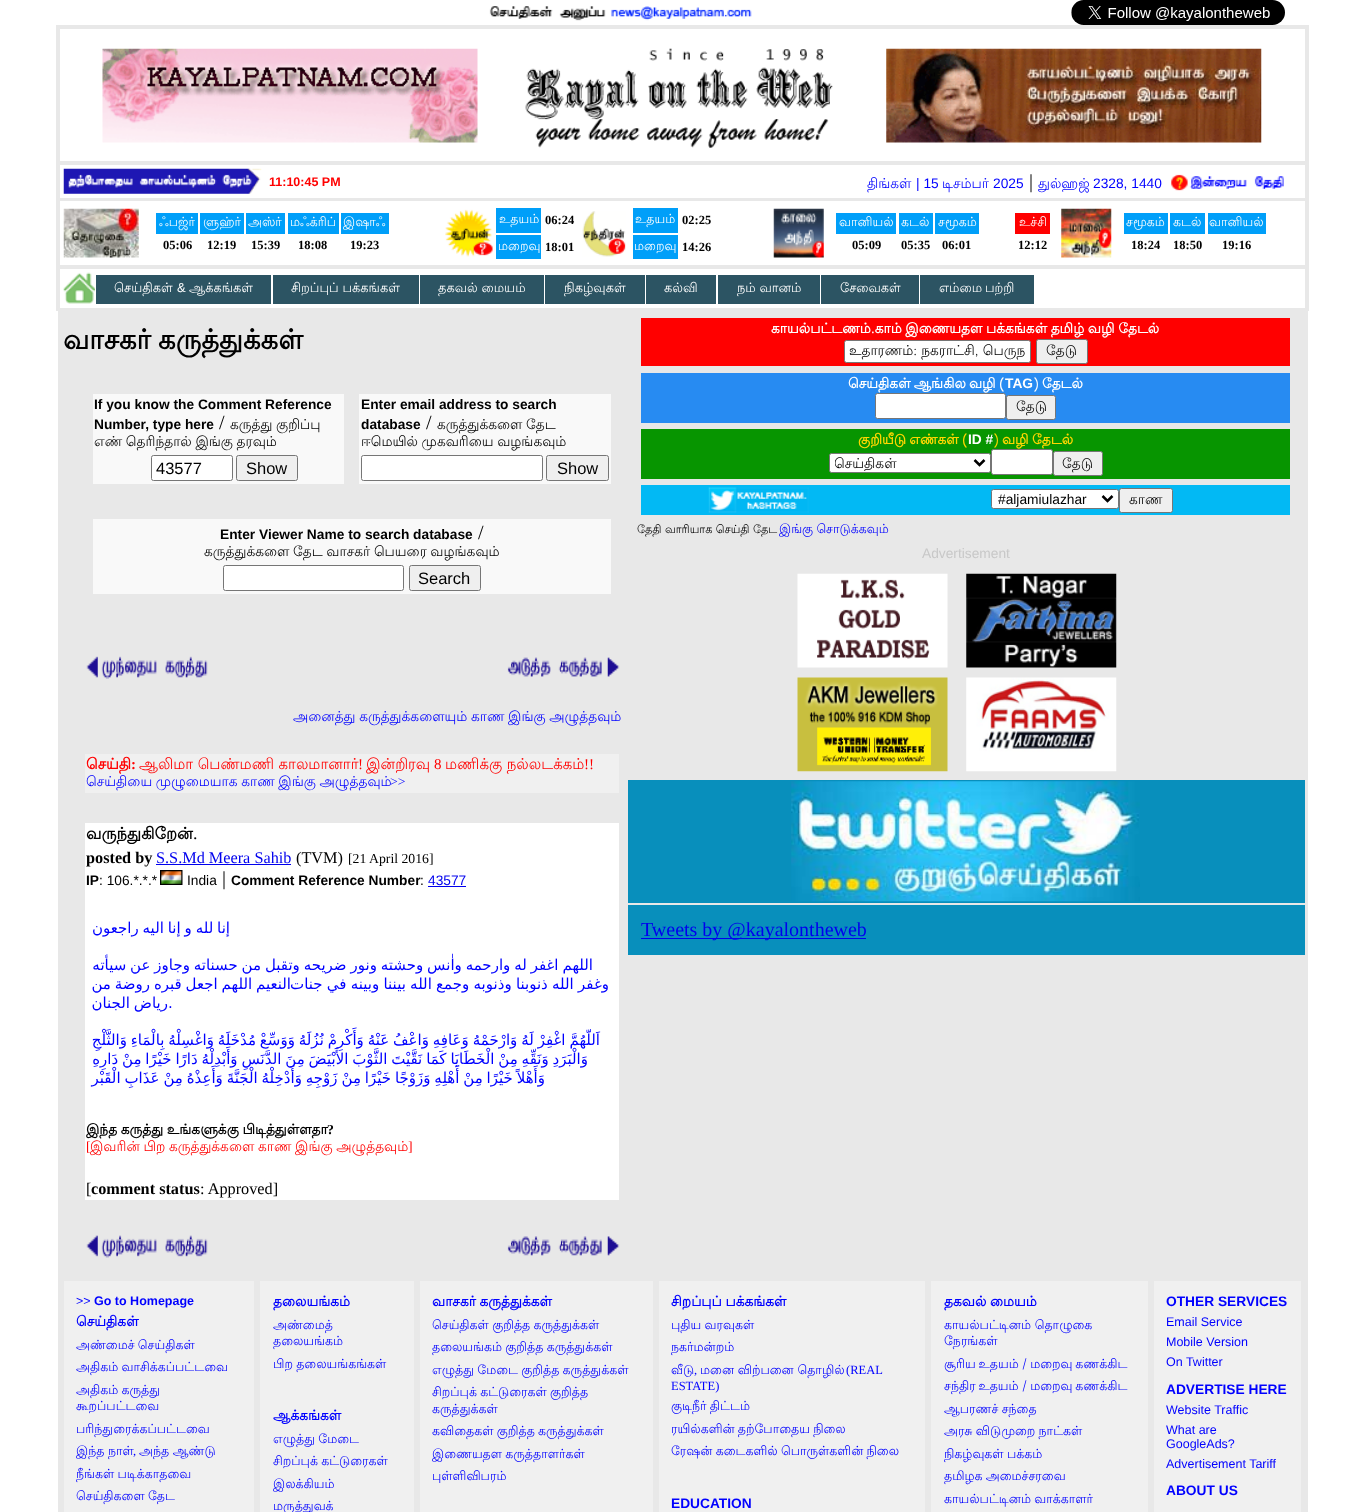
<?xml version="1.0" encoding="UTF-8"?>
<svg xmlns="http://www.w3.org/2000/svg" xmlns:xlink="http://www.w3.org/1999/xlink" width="1363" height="1512">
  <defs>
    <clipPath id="clip1"><rect x="835" y="454" width="135" height="17" /></clipPath>
  </defs>
  <rect width="100%" height="100%" fill="#ffffff" />
  <image x="489" y="6" width="263" height="15" xlink:href="image1.png" />
  <image x="1071" y="0" width="214" height="25" xlink:href="image2.png" />
  <rect x="56" y="25" width="1253" height="286" fill="#e8e8e8" />
  <rect x="60" y="29" width="1245" height="132" fill="#ffffff" />
  <image x="102" y="48" width="376" height="95" xlink:href="image3.png" />
  <image x="525" y="48" width="308" height="100" xlink:href="image4.png" />
  <image x="886" y="48" width="376" height="95" xlink:href="image5.png" />
  <rect x="60" y="165" width="1245" height="33" fill="#ffffff" />
  <image x="63" y="168" width="199" height="26" xlink:href="image6.png" />
  <image x="1171" y="174" width="113" height="17" xlink:href="image7.png" />
  <rect x="60" y="201" width="1245" height="64" fill="#ffffff" />
  <image x="63" y="208" width="76" height="50" xlink:href="image8.png" />
  <rect x="156" y="213" width="42" height="21" fill="#009ff9" />
  <rect x="200" y="213" width="44" height="21" fill="#009ff9" />
  <rect x="246" y="213" width="39" height="21" fill="#009ff9" />
  <rect x="288" y="213" width="51" height="21" fill="#009ff9" />
  <rect x="341" y="213" width="48" height="21" fill="#009ff9" />
  <image x="445" y="209" width="48" height="48" xlink:href="image9.png" />
  <rect x="496" y="208" width="45" height="25" fill="#009ff9" />
  <image x="582" y="211" width="44" height="46" xlink:href="image10.png" />
  <rect x="633" y="208" width="45" height="25" fill="#009ff9" />
  <rect x="496" y="235" width="45" height="24" fill="#009ff9" />
  <rect x="633" y="235" width="45" height="24" fill="#009ff9" />
  <image x="773" y="208" width="51" height="50" xlink:href="image11.png" />
  <rect x="836" y="213" width="60" height="21" fill="#009ff9" />
  <rect x="899" y="213" width="34" height="21" fill="#009ff9" />
  <rect x="935" y="213" width="44" height="21" fill="#009ff9" />
  <rect x="1015" y="213" width="35" height="21" fill="#ff0000" />
  <image x="1061" y="208" width="51" height="50" xlink:href="image12.png" />
  <rect x="1124" y="213" width="44" height="21" fill="#009ff9" />
  <rect x="1170" y="213" width="35" height="21" fill="#009ff9" />
  <rect x="1208" y="213" width="58" height="21" fill="#009ff9" />
  <rect x="60" y="269" width="1245" height="39" fill="#ffffff" />
  <image x="63" y="272" width="32" height="32" xlink:href="image13.png" />
  <rect x="96" y="275" width="175" height="29" fill="#2c5463" />
  <rect x="273" y="275" width="146" height="29" fill="#2c5463" />
  <rect x="420" y="275" width="124" height="29" fill="#2c5463" />
  <rect x="545" y="275" width="100" height="29" fill="#2c5463" />
  <rect x="646" y="275" width="70" height="29" fill="#2c5463" />
  <rect x="718" y="275" width="102" height="29" fill="#2c5463" />
  <rect x="821" y="275" width="98" height="29" fill="#2c5463" />
  <rect x="920" y="275" width="114" height="29" fill="#2c5463" />
  <rect x="58" y="311" width="1250" height="1201" fill="#e8e8e8" />
  <rect x="93" y="394" width="251" height="90" fill="#f9f9f9" />
  <rect x="151.5" y="455.5" width="81" height="25" rx="2" fill="#ffffff" stroke="#767676" />
  <rect x="236.5" y="455.5" width="61" height="25" rx="2" fill="#efefef" stroke="#767676" />
  <rect x="359" y="394" width="252" height="90" fill="#f9f9f9" />
  <rect x="361.5" y="455.5" width="181" height="25" rx="2" fill="#ffffff" stroke="#767676" />
  <rect x="546.5" y="455.5" width="62" height="25" rx="2" fill="#efefef" stroke="#767676" />
  <rect x="93" y="519" width="518" height="75" fill="#f9f9f9" />
  <rect x="223.5" y="565.5" width="180" height="25" rx="2" fill="#ffffff" stroke="#767676" />
  <rect x="409.5" y="565.5" width="71" height="25" rx="2" fill="#efefef" stroke="#767676" />
  <image x="86" y="656" width="122" height="23" xlink:href="image14.png" />
  <image x="507" y="657" width="113" height="20" xlink:href="image15.png" />
  <rect x="85" y="754" width="534" height="39" fill="#f0f0f0" />
  <rect x="85" y="823" width="534" height="377" fill="#ffffff" />
  <rect x="156" y="864" width="135" height="1" fill="#0000ee" />
  <image x="160" y="870" width="23" height="15" xlink:href="image16.png" />
  <rect x="428" y="886" width="38" height="1" fill="#0000ee" />
  <image x="86" y="1235" width="122" height="23" xlink:href="image17.png" />
  <image x="507" y="1236" width="113" height="20" xlink:href="image18.png" />
  <rect x="641" y="318" width="649" height="48" fill="#ff0000" />
  <rect x="844.5" y="340.5" width="186" height="22" rx="2" fill="#ffffff" stroke="#767676" />
  <rect x="1036.5" y="339.5" width="51" height="24" rx="2" fill="#efefef" stroke="#767676" />
  <rect x="641" y="373" width="649" height="50" fill="#278bf2" />
  <rect x="875.5" y="393.5" width="130" height="25" rx="2" fill="#ffffff" stroke="#767676" />
  <rect x="1006.5" y="395.5" width="49" height="24" rx="2" fill="#efefef" stroke="#767676" />
  <rect x="641" y="429" width="649" height="50" fill="#079500" />
  <rect x="829.5" y="453.5" width="161" height="19" rx="2" fill="#ffffff" stroke="#767676" />
  <path d="M 974.5 460 l 5 5 l 5 -5" fill="none" stroke="#000000" stroke-width="2.5" />
  <rect x="991.5" y="449.5" width="61" height="25" rx="2" fill="#ffffff" stroke="#767676" />
  <rect x="1053.5" y="451.5" width="49" height="24" rx="2" fill="#efefef" stroke="#767676" />
  <rect x="641" y="485" width="649" height="30" fill="#02b9f4" />
  <image x="708" y="487" width="101" height="26" xlink:href="image19.png" />
  <rect x="991.5" y="489.5" width="127" height="19" rx="2" fill="#ffffff" stroke="#767676" />
  <path d="M 1102.5 496 l 5 5 l 5 -5" fill="none" stroke="#000000" stroke-width="2.5" />
  <rect x="1119.5" y="488.5" width="53" height="24" rx="2" fill="#efefef" stroke="#767676" />
  <image x="797" y="573" width="151" height="95" xlink:href="image20.png" />
  <image x="966" y="573" width="151" height="95" xlink:href="image21.png" />
  <image x="797" y="677" width="151" height="95" xlink:href="image22.png" />
  <image x="966" y="677" width="151" height="95" xlink:href="image23.png" />
  <rect x="628" y="780" width="677" height="123" fill="#088fbc" />
  <image x="791" y="781" width="349" height="121" xlink:href="image24.png" />
  <rect x="628" y="905" width="677" height="50" fill="#088fbc" />
  <rect x="641" y="938" width="225" height="1" fill="#0000ee" />
  <rect x="64" y="1281" width="190" height="231" fill="#f0f0f0" />
  <rect x="260" y="1281" width="154" height="231" fill="#f0f0f0" />
  <rect x="420" y="1281" width="233" height="231" fill="#f0f0f0" />
  <rect x="659" y="1281" width="266" height="231" fill="#f0f0f0" />
  <rect x="931" y="1281" width="217" height="231" fill="#f0f0f0" />
  <rect x="1154" y="1281" width="147" height="231" fill="#f0f0f0" />
  <text x="269" y="186" style="font-family: Liberation Sans; font-size: 12.5px; font-weight: bold; fill: #ff0000">11:10:45 PM</text>
  <text x="867" y="188" style="font-family: Lohit Tamil; font-size: 13.75px; fill: #0000ff">திங்கள்</text>
  <text x="916" y="188" style="font-family: Liberation Sans; font-size: 13.75px; fill: #0000ff">| 15</text>
  <text x="942" y="188" style="font-family: Lohit Tamil; font-size: 13.75px; fill: #0000ff">டிசம்பர்</text>
  <text x="993" y="188" style="font-family: Liberation Sans; font-size: 13.75px; fill: #0000ff">2025</text>
  <text x="1029" y="188" style="font-family: Liberation Serif; font-size: 20px; fill: #000000">|</text>
  <text x="1038" y="188" style="font-family: Lohit Tamil; font-size: 13.75px; fill: #0000ff">துல்ஹஜ்</text>
  <text x="1093" y="188" style="font-family: Liberation Sans; font-size: 13.75px; fill: #0000ff">2328, 1440</text>
  <text x="159" y="226" style="font-family: Lohit Tamil; font-size: 12.5px; fill: #ffffff">ஃபஜ்ர்</text>
  <text x="203" y="226" style="font-family: Lohit Tamil; font-size: 12.5px; fill: #ffffff">ளுஹ்ர்</text>
  <text x="248" y="226" style="font-family: Lohit Tamil; font-size: 12.5px; fill: #ffffff">அஸ்ர்</text>
  <text x="290" y="226" style="font-family: Lohit Tamil; font-size: 12.5px; fill: #ffffff">மஃக்ரிப்</text>
  <text x="343" y="226" style="font-family: Lohit Tamil; font-size: 12.5px; fill: #ffffff">இஷாஃ</text>
  <text x="163" y="249" style="font-family: Liberation Serif; font-size: 12.5px; font-weight: bold; fill: #000000">05:06</text>
  <text x="207" y="249" style="font-family: Liberation Serif; font-size: 12.5px; font-weight: bold; fill: #000000">12:19</text>
  <text x="251" y="249" style="font-family: Liberation Serif; font-size: 12.5px; font-weight: bold; fill: #000000">15:39</text>
  <text x="298" y="249" style="font-family: Liberation Serif; font-size: 12.5px; font-weight: bold; fill: #000000">18:08</text>
  <text x="350" y="249" style="font-family: Liberation Serif; font-size: 12.5px; font-weight: bold; fill: #000000">19:23</text>
  <text x="499" y="223" style="font-family: Lohit Tamil; font-size: 12.5px; fill: #ffffff">உதயம்</text>
  <text x="545" y="224" style="font-family: Liberation Serif; font-size: 12.5px; font-weight: bold; fill: #000000">06:24</text>
  <text x="635" y="223" style="font-family: Lohit Tamil; font-size: 12.5px; fill: #ffffff">உதயம்</text>
  <text x="682" y="224" style="font-family: Liberation Serif; font-size: 12.5px; font-weight: bold; fill: #000000">02:25</text>
  <text x="498" y="250" style="font-family: Lohit Tamil; font-size: 12.5px; fill: #ffffff">மறைவு</text>
  <text x="545" y="251" style="font-family: Liberation Serif; font-size: 12.5px; font-weight: bold; fill: #000000">18:01</text>
  <text x="634" y="250" style="font-family: Lohit Tamil; font-size: 12.5px; fill: #ffffff">மறைவு</text>
  <text x="682" y="251" style="font-family: Liberation Serif; font-size: 12.5px; font-weight: bold; fill: #000000">14:26</text>
  <text x="839" y="226" style="font-family: Lohit Tamil; font-size: 12.5px; fill: #ffffff">வானியல்</text>
  <text x="901" y="226" style="font-family: Lohit Tamil; font-size: 12.5px; fill: #ffffff">கடல்</text>
  <text x="938" y="226" style="font-family: Lohit Tamil; font-size: 12.5px; fill: #ffffff">சமூகம்</text>
  <text x="852" y="249" style="font-family: Liberation Serif; font-size: 12.5px; font-weight: bold; fill: #000000">05:09</text>
  <text x="901" y="249" style="font-family: Liberation Serif; font-size: 12.5px; font-weight: bold; fill: #000000">05:35</text>
  <text x="942" y="249" style="font-family: Liberation Serif; font-size: 12.5px; font-weight: bold; fill: #000000">06:01</text>
  <text x="1019" y="226" style="font-family: Lohit Tamil; font-size: 12.5px; fill: #ffffff">உச்சி</text>
  <text x="1018" y="249" style="font-family: Liberation Serif; font-size: 12.5px; font-weight: bold; fill: #000000">12:12</text>
  <text x="1126" y="226" style="font-family: Lohit Tamil; font-size: 12.5px; fill: #ffffff">சமூகம்</text>
  <text x="1173" y="226" style="font-family: Lohit Tamil; font-size: 12.5px; fill: #ffffff">கடல்</text>
  <text x="1209" y="226" style="font-family: Lohit Tamil; font-size: 12.5px; fill: #ffffff">வானியல்</text>
  <text x="1131" y="249" style="font-family: Liberation Serif; font-size: 12.5px; font-weight: bold; fill: #000000">18:24</text>
  <text x="1173" y="249" style="font-family: Liberation Serif; font-size: 12.5px; font-weight: bold; fill: #000000">18:50</text>
  <text x="1222" y="249" style="font-family: Liberation Serif; font-size: 12.5px; font-weight: bold; fill: #000000">19:16</text>
  <text x="114" y="292" style="font-family: Lohit Tamil; font-size: 12.9px; fill: #ffffff">செய்திகள்</text>
  <text x="177" y="292" style="font-family: Liberation Sans; font-size: 12.9px; fill: #ffffff">&amp;</text>
  <text x="189" y="292" style="font-family: Lohit Tamil; font-size: 12.9px; fill: #ffffff">ஆக்கங்கள்</text>
  <text x="291" y="292" style="font-family: Lohit Tamil; font-size: 12.9px; fill: #ffffff">சிறப்புப் பக்கங்கள்</text>
  <text x="438" y="292" style="font-family: Lohit Tamil; font-size: 12.9px; fill: #ffffff">தகவல் மையம்</text>
  <text x="564" y="292" style="font-family: Lohit Tamil; font-size: 12.9px; fill: #ffffff">நிகழ்வுகள்</text>
  <text x="664" y="292" style="font-family: Lohit Tamil; font-size: 12.9px; fill: #ffffff">கல்வி</text>
  <text x="737" y="292" style="font-family: Lohit Tamil; font-size: 12.9px; fill: #ffffff">நம் வானம்</text>
  <text x="840" y="292" style="font-family: Lohit Tamil; font-size: 12.9px; fill: #ffffff">சேவைகள்</text>
  <text x="939" y="292" style="font-family: Lohit Tamil; font-size: 12.9px; fill: #ffffff">எம்மை</text>
  <text x="985" y="292" style="font-family: Lohit Tamil; font-size: 12.9px; fill: #ffffff">பற்றி</text>
  <text x="63" y="349" word-spacing="-1" style="font-family: Lohit Tamil; font-size: 27.5px; font-weight: bold; fill: #000000">வாசகர் கருத்துக்கள்</text>
  <text x="94" y="409" style="font-family: Liberation Sans; font-size: 13.75px; font-weight: bold; fill: #000000">If you know the Comment Reference</text>
  <text x="94" y="429" style="font-family: Liberation Sans; font-size: 13.75px; font-weight: bold; fill: #000000">Number, type here</text>
  <text x="219" y="429" style="font-family: Liberation Serif; font-size: 20px; fill: #000000">/</text>
  <text x="230" y="429" word-spacing="-0.5" style="font-family: Lohit Tamil; font-size: 13.75px; fill: #000000">கருத்து குறிப்பு</text>
  <text x="94" y="446" word-spacing="-0.5" style="font-family: Lohit Tamil; font-size: 13.75px; fill: #000000">எண் தெரிந்தால் இங்கு தரவும்</text>
  <text x="156" y="474" style="font-family: Liberation Sans; font-size: 16.5px; fill: #000000">43577</text>
  <text x="246" y="474" style="font-family: Liberation Sans; font-size: 16.5px; fill: #000000">Show</text>
  <text x="361" y="409" style="font-family: Liberation Sans; font-size: 13.75px; font-weight: bold; fill: #000000">Enter email address to search</text>
  <text x="361" y="429" style="font-family: Liberation Sans; font-size: 13.75px; font-weight: bold; fill: #000000">database</text>
  <text x="426" y="429" style="font-family: Liberation Serif; font-size: 20px; fill: #000000">/</text>
  <text x="437" y="429" word-spacing="-0.5" style="font-family: Lohit Tamil; font-size: 13.75px; fill: #000000">கருத்துக்களை தேட</text>
  <text x="361" y="446" word-spacing="-0.5" style="font-family: Lohit Tamil; font-size: 13.75px; fill: #000000">ஈமெயில் முகவரியை வழங்கவும்</text>
  <text x="557" y="474" style="font-family: Liberation Sans; font-size: 16.5px; fill: #000000">Show</text>
  <text x="220" y="539" style="font-family: Liberation Sans; font-size: 13.75px; font-weight: bold; fill: #000000">Enter Viewer Name to search database</text>
  <text x="478" y="539" style="font-family: Liberation Serif; font-size: 20px; fill: #000000">/</text>
  <text x="204" y="556" word-spacing="-0.5" style="font-family: Lohit Tamil; font-size: 13.75px; fill: #000000">கருத்துக்களை தேட வாசகர் பெயரை வழங்கவும்</text>
  <text x="418" y="584" style="font-family: Liberation Sans; font-size: 16.5px; fill: #000000">Search</text>
  <text x="293" y="721" word-spacing="-0.5" style="font-family: Lohit Tamil; font-size: 13.75px; fill: #0000ff">அனைத்து கருத்துக்களையும்</text>
  <text x="471" y="721" word-spacing="-0.5" style="font-family: Lohit Tamil; font-size: 13.75px; fill: #0000ff">காண இங்கு அழுத்தவும்</text>
  <text x="86" y="769" style="font-family: Lohit Tamil; font-size: 15px; font-weight: bold; fill: #ff0000">செய்தி</text>
  <text x="131" y="769" style="font-family: Liberation Serif; font-size: 15px; font-weight: bold; fill: #ff0000">:</text>
  <text x="139" y="769" style="font-family: Lohit Tamil; font-size: 15px; fill: #ff0000">ஆலிமா பெண்மணி காலமானார்</text>
  <text x="358" y="769" style="font-family: Liberation Serif; font-size: 15px; fill: #ff0000">!</text>
  <text x="366" y="769" style="font-family: Lohit Tamil; font-size: 15px; fill: #ff0000">இன்றிரவு</text>
  <text x="434" y="769" style="font-family: Liberation Serif; font-size: 15px; fill: #ff0000">8</text>
  <text x="445" y="769" style="font-family: Lohit Tamil; font-size: 15px; fill: #ff0000">மணிக்கு நல்லடக்கம்</text>
  <text x="584" y="769" style="font-family: Liberation Serif; font-size: 15px; fill: #ff0000">!!</text>
  <text x="86" y="786" word-spacing="-0.5" style="font-family: Lohit Tamil; font-size: 13.75px; fill: #0000ff">செய்தியை முழுமையாக காண இங்கு அழுத்தவும்</text>
  <text x="390" y="786" style="font-family: Liberation Serif; font-size: 13.75px; fill: #0000ff">&gt;&gt;</text>
  <text x="86" y="839" style="font-family: Lohit Tamil; font-size: 16.25px; font-weight: bold; fill: #000000">வருந்துகிறேன்.</text>
  <text x="86" y="863" style="font-family: Liberation Serif; font-size: 16.25px; font-weight: bold; fill: #000000">posted by</text>
  <text x="156" y="863" style="font-family: Liberation Serif; font-size: 16.25px; fill: #0000ee">S.S.Md Meera Sahib</text>
  <text x="296" y="863" style="font-family: Liberation Serif; font-size: 16.25px; fill: #000000">(TVM)</text>
  <text x="348" y="863" style="font-family: Liberation Serif; font-size: 13.75px; fill: #000000">[21 April 2016]</text>
  <text x="86" y="885" style="font-family: Liberation Sans; font-size: 13.75px; font-weight: bold; fill: #000000">IP</text>
  <text x="99" y="885" style="font-family: Liberation Sans; font-size: 13.75px; fill: #000000">: 106.*.*.*</text>
  <text x="187" y="885" style="font-family: Liberation Sans; font-size: 13.75px; fill: #000000">India</text>
  <text x="222" y="885" style="font-family: Liberation Serif; font-size: 20px; fill: #000000">|</text>
  <text x="231" y="885" style="font-family: Liberation Sans; font-size: 13.75px; font-weight: bold; fill: #000000">Comment Reference Number</text>
  <text x="420" y="885" style="font-family: Liberation Sans; font-size: 13.75px; fill: #000000">:</text>
  <text x="428" y="885" style="font-family: Liberation Sans; font-size: 13.75px; fill: #0000ee">43577</text>
  <text x="230" y="933" word-spacing="-0.9" style="font-family: DejaVu Sans; font-size: 15px; direction: rtl; fill: #0000ff">إنا لله و إنا اليه راجعون</text>
  <text x="593" y="970" word-spacing="-0.9" style="font-family: DejaVu Sans; font-size: 15px; direction: rtl; fill: #0000ff">اللهم اغفر له وارحمه واٰنس وحشته ونور ضريحه وتقبل من حسناته وجاوز عن سيأته</text>
  <text x="291" y="989" word-spacing="-0.9" style="font-family: DejaVu Sans; font-size: 15px; direction: rtl; fill: #0000ff">النعيم اللهم اجعل قبره روضة من</text>
  <text x="609" y="989" word-spacing="-0.5" style="font-family: DejaVu Sans; font-size: 15px; direction: rtl; fill: #0000ff">وغفر الله ذنوبنا وذنوبه وجمع الله بيننا وبينه في جنات</text>
  <text x="168" y="1008" word-spacing="-0.9" style="font-family: DejaVu Sans; font-size: 15px; direction: rtl; fill: #0000ff">رياض الجنان</text>
  <text x="168" y="1008" style="font-family: DejaVu Sans; font-size: 15px; fill: #0000ff">.</text>
  <text x="600" y="1045" word-spacing="-0.9" style="font-family: DejaVu Sans; font-size: 15px; direction: rtl; fill: #0000ff">اَللّهُمَّ اغْفِرْ لَهُ وَارْحَمْهُ وَعَافِهِ وَاعْفُ عَنْهُ وَأَكْرِمْ نُزُلَهُ وَوَسِّعْ مُدْخَلَهُ وَاغْسِلْهُ بِالْمَاءِ وَالثَّلْجِ</text>
  <text x="588" y="1064" word-spacing="-0.9" style="font-family: DejaVu Sans; font-size: 15px; direction: rtl; fill: #0000ff">وَالْبَرَدِ وَنَقِّهِ مِنْ الْخَطَايَا كَمَا نَقَّيْتَ الثَّوْبَ الأَبْيَضَ مِنَ الدَّنَسِ وَأَبْدِلْهُ دَارًا خَيْرًا مِنْ دَارِهِ</text>
  <text x="545" y="1083" word-spacing="-0.9" style="font-family: DejaVu Sans; font-size: 15px; direction: rtl; fill: #0000ff">وَأَهْلاً خَيْرًا مِنْ أَهْلِهِ وَزَوْجًا خَيْرًا مِنْ زَوْجِهِ وَأَدْخِلْهُ الْجَنَّةَ وَأَعِذْهُ مِنْ عَذَابِ الْقَبْر</text>
  <text x="86" y="1134" word-spacing="-0.5" style="font-family: Lohit Tamil; font-size: 13.75px; font-weight: bold; fill: #000000">இந்த கருத்து உங்களுக்கு பிடித்துள்ளதா</text>
  <text x="327" y="1134" style="font-family: Liberation Serif; font-size: 13.75px; font-weight: bold; fill: #000000">?</text>
  <text x="86" y="1151" style="font-family: Liberation Serif; font-size: 13.75px; fill: #ff0000">[</text>
  <text x="90" y="1151" word-spacing="-0.5" style="font-family: Lohit Tamil; font-size: 13.75px; fill: #ff0000">இவரின் பிற கருத்துக்களை காண இங்கு அழுத்தவும்</text>
  <text x="408" y="1151" style="font-family: Liberation Serif; font-size: 13.75px; fill: #ff0000">]</text>
  <text x="86" y="1194" style="font-family: Liberation Serif; font-size: 16.25px; fill: #000000">[</text>
  <text x="91" y="1194" style="font-family: Liberation Serif; font-size: 16.25px; font-weight: bold; fill: #000000">comment status</text>
  <text x="200" y="1194" style="font-family: Liberation Serif; font-size: 16.25px; fill: #000000">: Approved]</text>
  <text x="771" y="333" word-spacing="-0.5" style="font-family: Lohit Tamil; font-size: 13.75px; font-weight: bold; fill: #ffffff">காயல்பட்டணம்.காம் இணையதள பக்கங்கள் தமிழ் வழி தேடல்</text>
  <text x="849" y="355" style="font-family: Lohit Tamil; font-size: 13.75px; fill: #000000">உதாரணம்: நகராட்சி, பெருந</text>
  <text x="1046" y="355" style="font-family: Lohit Tamil; font-size: 13.75px; fill: #000000">தேடு</text>
  <text x="848" y="388" word-spacing="-1" style="font-family: Lohit Tamil; font-size: 13.75px; font-weight: bold; fill: #ffffff">செய்திகள் ஆங்கில வழி (</text>
  <text x="1005" y="388" style="font-family: Liberation Sans; font-size: 13.75px; font-weight: bold; fill: #ffffff">TAG</text>
  <text x="1033" y="388" word-spacing="-1" style="font-family: Lohit Tamil; font-size: 13.75px; font-weight: bold; fill: #ffffff">) தேடல்</text>
  <text x="1016" y="411" style="font-family: Lohit Tamil; font-size: 13.75px; fill: #000000">தேடு</text>
  <text x="858" y="444" word-spacing="-1" style="font-family: Lohit Tamil; font-size: 13.75px; font-weight: bold; fill: #ffd700">குறியீடு எண்கள் (</text>
  <text x="968" y="444" style="font-family: Liberation Sans; font-size: 13.75px; font-weight: bold; fill: #ffffff">ID #</text>
  <text x="993" y="444" word-spacing="-1" style="font-family: Lohit Tamil; font-size: 13.75px; font-weight: bold; fill: #ffd700">) வழி</text>
  <text x="1032" y="444" style="font-family: Lohit Tamil; font-size: 13.75px; font-weight: bold; fill: #ffd700">தேடல்</text>
  <g clip-path="url(#clip1)">
    <text x="834" y="468" style="font-family: Lohit Tamil; font-size: 13.75px; fill: #000000">செய்திகள்</text>
  </g>
  <text x="1062" y="468" style="font-family: Lohit Tamil; font-size: 13.75px; fill: #000000">தேடு</text>
  <text x="998" y="504" style="font-family: Liberation Sans; font-size: 13.75px; fill: #000000">#aljamiulazhar</text>
  <text x="1129" y="504" style="font-family: Lohit Tamil; font-size: 13.75px; fill: #000000">காண</text>
  <text x="637" y="533" style="font-family: Lohit Tamil; font-size: 11.25px; fill: #000000">தேதி வாரியாக செய்தி தேட</text>
  <text x="779" y="533" word-spacing="-0.5" style="font-family: Lohit Tamil; font-size: 12.5px; fill: #0000ff">இங்கு சொடுக்கவும்</text>
  <text x="922" y="558" style="font-family: Liberation Sans; font-size: 13.75px; fill: #c8c8c8">Advertisement</text>
  <text x="641" y="936" style="font-family: Liberation Serif; font-size: 20px; fill: #0000ee">Tweets by @kayalontheweb</text>
  <text x="76" y="1305" style="font-family: Liberation Sans; font-size: 12.5px; fill: #0000ff">&gt;&gt;</text>
  <text x="94" y="1305" style="font-family: Liberation Sans; font-size: 12.5px; font-weight: bold; fill: #0000ff">Go to Homepage</text>
  <text x="76" y="1326" style="font-family: Lohit Tamil; font-size: 13.75px; font-weight: bold; fill: #0000ff">செய்திகள்</text>
  <text x="76" y="1349" word-spacing="-0.5" style="font-family: Lohit Tamil; font-size: 12.5px; fill: #0000ff">அண்மைச் செய்திகள்</text>
  <text x="76" y="1371" word-spacing="-0.5" style="font-family: Lohit Tamil; font-size: 12.5px; fill: #0000ff">அதிகம் வாசிக்கப்பட்டவை</text>
  <text x="76" y="1394" word-spacing="-0.5" style="font-family: Lohit Tamil; font-size: 12.5px; fill: #0000ff">அதிகம் கருத்து</text>
  <text x="76" y="1410" style="font-family: Lohit Tamil; font-size: 12.5px; fill: #0000ff">கூறப்பட்டவை</text>
  <text x="76" y="1433" style="font-family: Lohit Tamil; font-size: 12.5px; fill: #0000ff">பரிந்துரைக்கப்பட்டவை</text>
  <text x="76" y="1455" style="font-family: Lohit Tamil; font-size: 12.5px; fill: #0000ff">இந்த நாள்</text>
  <text x="133" y="1455" style="font-family: Liberation Serif; font-size: 12.5px; fill: #0000ff">,</text>
  <text x="139" y="1455" style="font-family: Lohit Tamil; font-size: 12.5px; fill: #0000ff">அந்த ஆண்டு</text>
  <text x="76" y="1478" word-spacing="-0.5" style="font-family: Lohit Tamil; font-size: 12.5px; fill: #0000ff">நீங்கள் படிக்காதவை</text>
  <text x="76" y="1500" word-spacing="-0.5" style="font-family: Lohit Tamil; font-size: 12.5px; fill: #0000ff">செய்திகளை தேட</text>
  <text x="273" y="1306" style="font-family: Lohit Tamil; font-size: 13.75px; font-weight: bold; fill: #0000ff">தலையங்கம்</text>
  <text x="273" y="1329" style="font-family: Lohit Tamil; font-size: 12.5px; fill: #0000ff">அண்மைத்</text>
  <text x="273" y="1345" style="font-family: Lohit Tamil; font-size: 12.5px; fill: #0000ff">தலையங்கம்</text>
  <text x="273" y="1368" word-spacing="-0.5" style="font-family: Lohit Tamil; font-size: 12.5px; fill: #0000ff">பிற தலையங்கங்கள்</text>
  <text x="273" y="1420" style="font-family: Lohit Tamil; font-size: 13.75px; font-weight: bold; fill: #0000ff">ஆக்கங்கள்</text>
  <text x="273" y="1443" word-spacing="-0.5" style="font-family: Lohit Tamil; font-size: 12.5px; fill: #0000ff">எழுத்து மேடை</text>
  <text x="273" y="1465" word-spacing="-0.5" style="font-family: Lohit Tamil; font-size: 12.5px; fill: #0000ff">சிறப்புக் கட்டுரைகள்</text>
  <text x="273" y="1488" style="font-family: Lohit Tamil; font-size: 12.5px; fill: #0000ff">இலக்கியம்</text>
  <text x="273" y="1510" style="font-family: Lohit Tamil; font-size: 12.5px; fill: #0000ff">மருத்துவக்</text>
  <text x="432" y="1306" word-spacing="-0.5" style="font-family: Lohit Tamil; font-size: 13.75px; font-weight: bold; fill: #0000ff">வாசகர் கருத்துக்கள்</text>
  <text x="432" y="1329" word-spacing="-0.5" style="font-family: Lohit Tamil; font-size: 12.5px; fill: #0000ff">செய்திகள் குறித்த கருத்துக்கள்</text>
  <text x="432" y="1351" word-spacing="-0.5" style="font-family: Lohit Tamil; font-size: 12.5px; fill: #0000ff">தலையங்கம் குறித்த கருத்துக்கள்</text>
  <text x="432" y="1374" word-spacing="-0.5" style="font-family: Lohit Tamil; font-size: 12.5px; fill: #0000ff">எழுத்து மேடை குறித்த கருத்துக்கள்</text>
  <text x="432" y="1396" word-spacing="-0.5" style="font-family: Lohit Tamil; font-size: 12.5px; fill: #0000ff">சிறப்புக் கட்டுரைகள் குறித்த</text>
  <text x="432" y="1413" style="font-family: Lohit Tamil; font-size: 12.5px; fill: #0000ff">கருத்துக்கள்</text>
  <text x="432" y="1435" word-spacing="-0.5" style="font-family: Lohit Tamil; font-size: 12.5px; fill: #0000ff">கவிதைகள் குறித்த கருத்துக்கள்</text>
  <text x="432" y="1458" word-spacing="-0.5" style="font-family: Lohit Tamil; font-size: 12.5px; fill: #0000ff">இணையதள கருத்தாளர்கள்</text>
  <text x="432" y="1480" style="font-family: Lohit Tamil; font-size: 12.5px; fill: #0000ff">புள்ளிவிபரம்</text>
  <text x="671" y="1306" word-spacing="-0.5" style="font-family: Lohit Tamil; font-size: 13.75px; font-weight: bold; fill: #0000ff">சிறப்புப் பக்கங்கள்</text>
  <text x="671" y="1329" word-spacing="-0.5" style="font-family: Lohit Tamil; font-size: 12.5px; fill: #0000ff">புதிய வரவுகள்</text>
  <text x="671" y="1351" style="font-family: Lohit Tamil; font-size: 12.5px; fill: #0000ff">நகர்மன்றம்</text>
  <text x="671" y="1374" style="font-family: Lohit Tamil; font-size: 12.5px; fill: #0000ff">வீடு</text>
  <text x="694" y="1374" style="font-family: Liberation Serif; font-size: 12.5px; fill: #0000ff">,</text>
  <text x="700" y="1374" style="font-family: Lohit Tamil; font-size: 12.5px; fill: #0000ff">மனை விற்பனை தொழில்</text>
  <text x="846" y="1374" style="font-family: Liberation Serif; font-size: 12.5px; fill: #0000ff">(REAL</text>
  <text x="671" y="1390" style="font-family: Liberation Serif; font-size: 12.5px; fill: #0000ff">ESTATE)</text>
  <text x="671" y="1410" word-spacing="-0.5" style="font-family: Lohit Tamil; font-size: 12.5px; fill: #0000ff">குடிநீர் திட்டம்</text>
  <text x="671" y="1433" word-spacing="-0.5" style="font-family: Lohit Tamil; font-size: 12.5px; fill: #0000ff">ரயில்களின் தற்போதைய நிலை</text>
  <text x="671" y="1455" word-spacing="-0.5" style="font-family: Lohit Tamil; font-size: 12.5px; fill: #0000ff">ரேஷன் கடைகளில் பொருள்களின் நிலை</text>
  <text x="671" y="1508" style="font-family: Liberation Sans; font-size: 13.75px; font-weight: bold; fill: #0000ff">EDUCATION</text>
  <text x="944" y="1306" word-spacing="-0.5" style="font-family: Lohit Tamil; font-size: 13.75px; font-weight: bold; fill: #0000ff">தகவல் மையம்</text>
  <text x="944" y="1329" style="font-family: Lohit Tamil; font-size: 12.5px; fill: #0000ff">காயல்பட்டினம் தொழுகை</text>
  <text x="944" y="1345" style="font-family: Lohit Tamil; font-size: 12.5px; fill: #0000ff">நேரங்கள்</text>
  <text x="944" y="1368" word-spacing="-1" style="font-family: Lohit Tamil; font-size: 12.5px; fill: #0000ff">சூரிய உதயம் / மறைவு கணக்கிட</text>
  <text x="944" y="1390" word-spacing="-1" style="font-family: Lohit Tamil; font-size: 12.5px; fill: #0000ff">சந்திர உதயம் / மறைவு கணக்கிட</text>
  <text x="944" y="1413" word-spacing="-0.5" style="font-family: Lohit Tamil; font-size: 12.5px; fill: #0000ff">ஆபரணச் சந்தை</text>
  <text x="944" y="1435" word-spacing="-0.5" style="font-family: Lohit Tamil; font-size: 12.5px; fill: #0000ff">அரசு விடுமுறை நாட்கள்</text>
  <text x="944" y="1458" word-spacing="-0.5" style="font-family: Lohit Tamil; font-size: 12.5px; fill: #0000ff">நிகழ்வுகள் பக்கம்</text>
  <text x="944" y="1480" word-spacing="-0.5" style="font-family: Lohit Tamil; font-size: 12.5px; fill: #0000ff">தமிழக அமைச்சரவை</text>
  <text x="944" y="1503" word-spacing="-0.5" style="font-family: Lohit Tamil; font-size: 12.5px; fill: #0000ff">காயல்பட்டினம் வாக்காளர்</text>
  <text x="1166" y="1306" style="font-family: Liberation Sans; font-size: 13.75px; font-weight: bold; fill: #0000ff">OTHER SERVICES</text>
  <text x="1166" y="1326" style="font-family: Liberation Sans; font-size: 12.5px; fill: #0000ff">Email Service</text>
  <text x="1166" y="1346" style="font-family: Liberation Sans; font-size: 12.5px; fill: #0000ff">Mobile Version</text>
  <text x="1166" y="1366" style="font-family: Liberation Sans; font-size: 12.5px; fill: #0000ff">On Twitter</text>
  <text x="1166" y="1394" style="font-family: Liberation Sans; font-size: 13.75px; font-weight: bold; fill: #0000ff">ADVERTISE HERE</text>
  <text x="1166" y="1414" style="font-family: Liberation Sans; font-size: 12.5px; fill: #0000ff">Website Traffic</text>
  <text x="1166" y="1434" style="font-family: Liberation Sans; font-size: 12.5px; fill: #0000ff">What are</text>
  <text x="1166" y="1448" style="font-family: Liberation Sans; font-size: 12.5px; fill: #0000ff">GoogleAds?</text>
  <text x="1166" y="1468" style="font-family: Liberation Sans; font-size: 12.5px; fill: #0000ff">Advertisement Tariff</text>
  <text x="1166" y="1495" style="font-family: Liberation Sans; font-size: 13.75px; font-weight: bold; fill: #0000ff">ABOUT US</text>
</svg>
